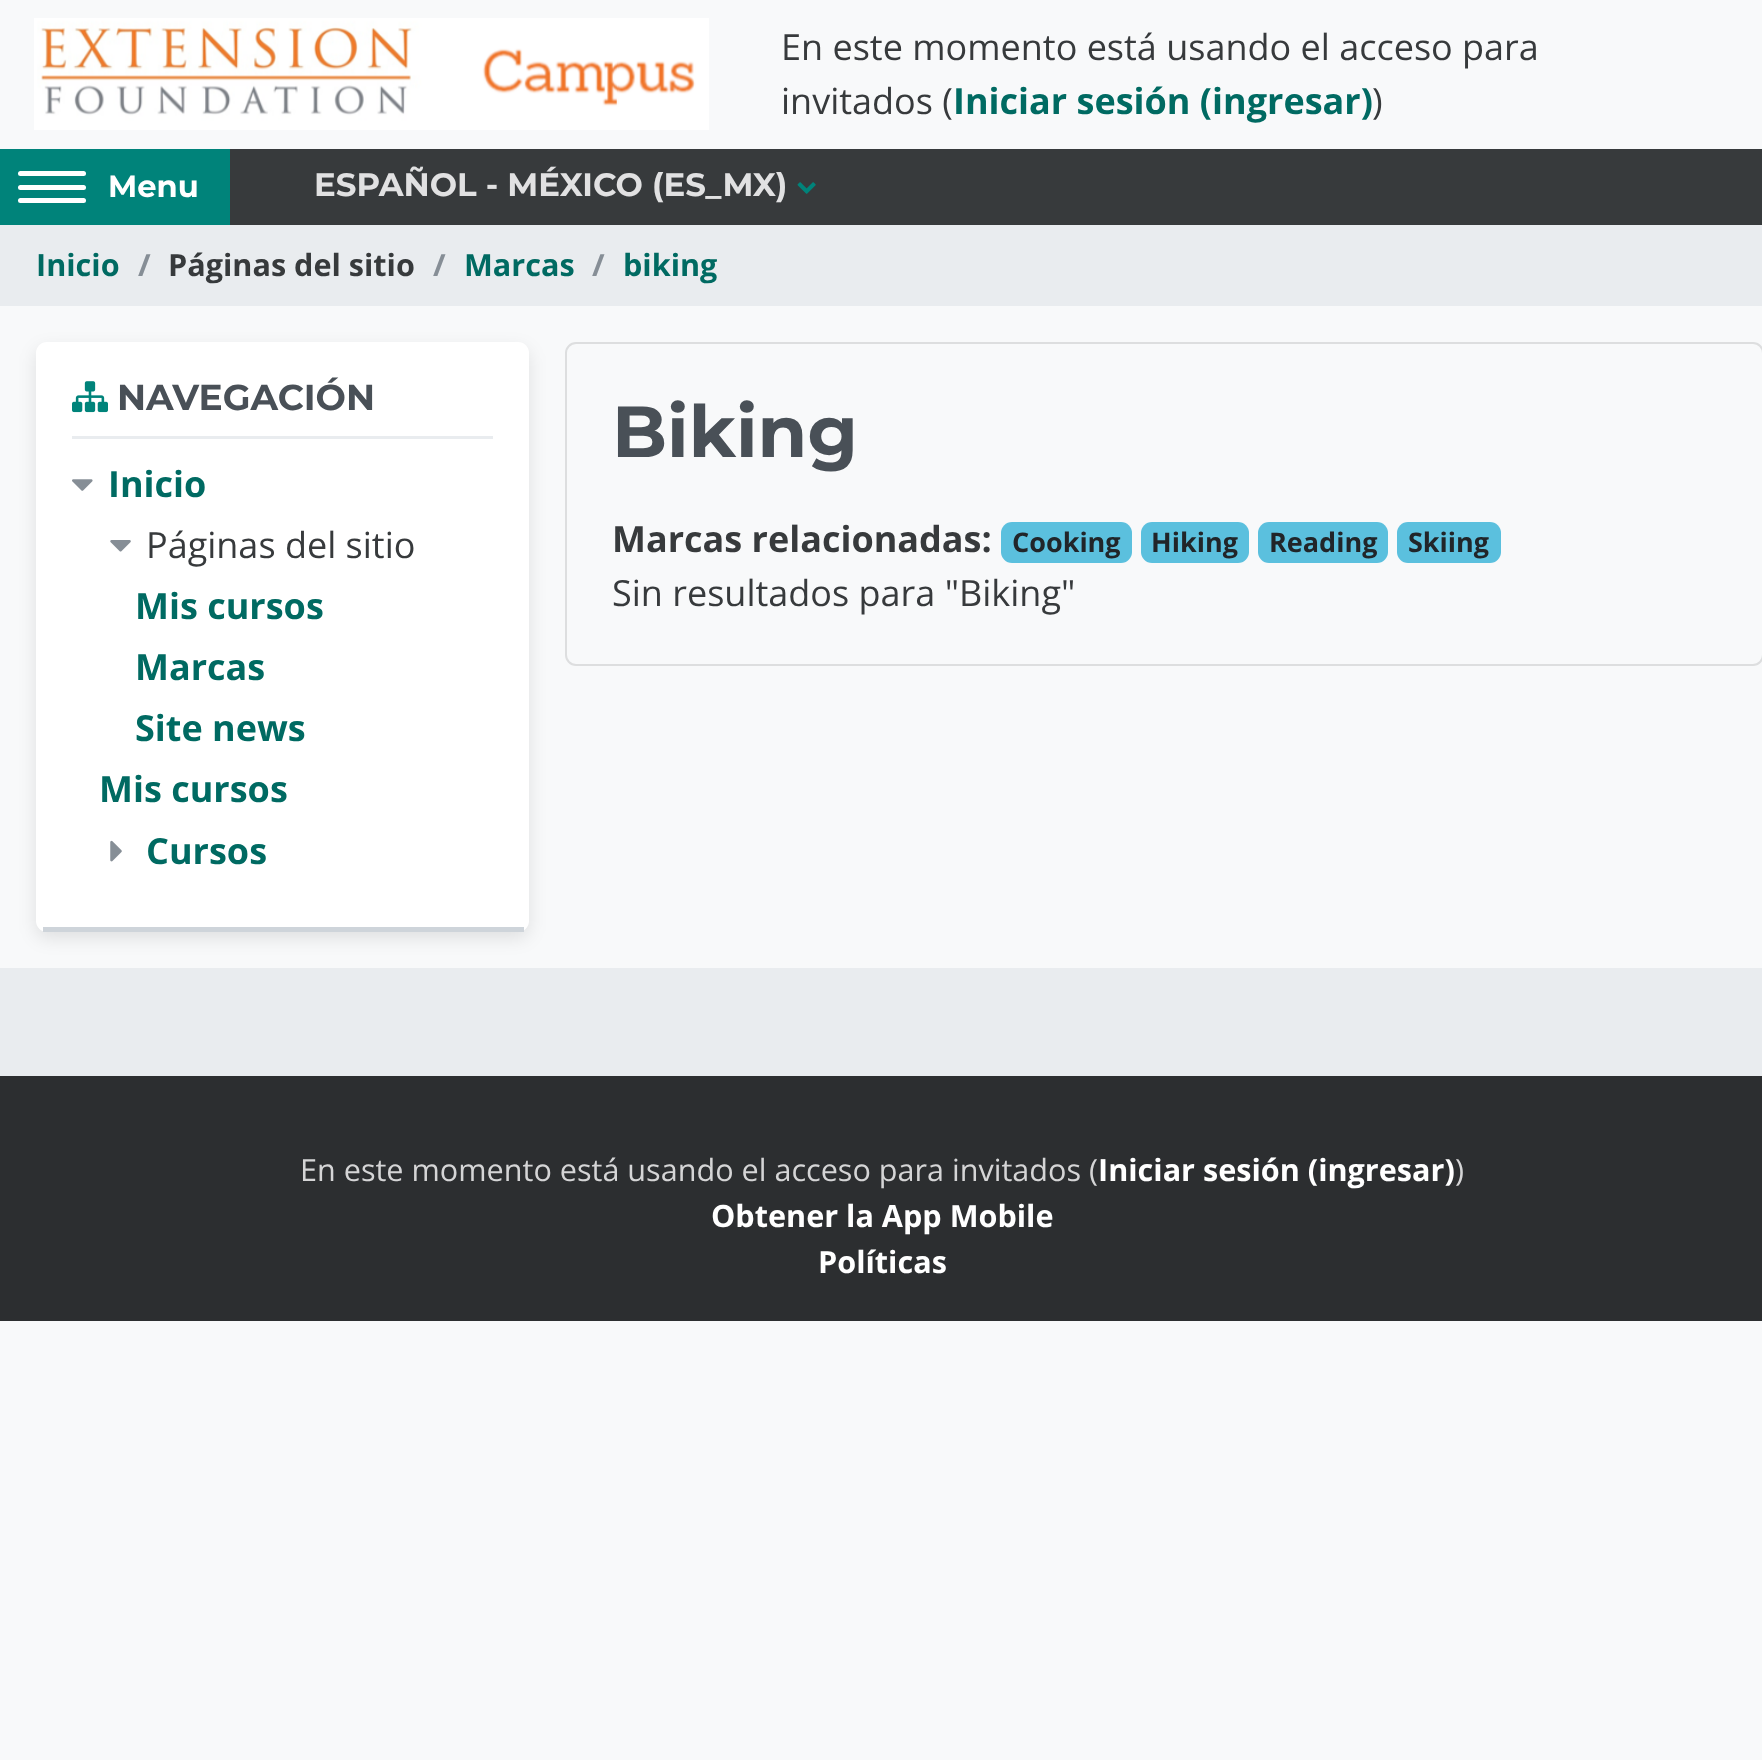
<?xml version="1.0" encoding="UTF-8"?>
<svg xmlns="http://www.w3.org/2000/svg" xmlns:xlink="http://www.w3.org/1999/xlink" width="1762" height="1760">
  <rect width="100%" height="100%" fill="#f8f9fa" />
  <image x="34" y="18" width="675" height="112" xlink:href="image1.png" />
  <rect x="230" y="149" width="1532" height="76" fill="#373a3c" />
  <rect y="149" width="230" height="76" fill="#00837a" />
  <rect x="18" y="171" width="68" height="5" rx="2.5" fill="#ffffff" />
  <rect x="18" y="185" width="68" height="5" rx="2.5" fill="#ffffff" />
  <rect x="18" y="198" width="68" height="5" rx="2.5" fill="#ffffff" />
  <image x="797" y="182" width="19" height="12" xlink:href="image2.png" />
  <rect y="225" width="1762" height="81" fill="#e9ecef" />
  <rect x="36" y="349" width="493" height="589" rx="11" fill="#000000" fill-opacity="0.1" filter="blur(9px)" />
  <rect x="36" y="342" width="493" height="590" rx="11" fill="#ffffff" />
  <rect x="43" y="927" width="481" height="5" fill="#ced4da" />
  <path d="M 72 436 v 3 h 421 v -59 v 56 z" fill="#e9ecef" />
  <image x="72" y="381" width="36" height="32" xlink:href="image3.png" />
  <image x="72" y="479" width="21" height="12" xlink:href="image4.png" />
  <image x="110" y="540" width="21" height="12" xlink:href="image5.png" />
  <image x="110" y="840" width="12" height="22" xlink:href="image6.png" />
  <rect x="566" y="343" width="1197" height="322" rx="10" fill="none" stroke="#dddedf" stroke-width="2" />
  <rect x="1001" y="522" width="131" height="41" rx="11" fill="#5bc0de" />
  <rect x="1141" y="522" width="108" height="41" rx="11" fill="#5bc0de" />
  <rect x="1258" y="522" width="130" height="41" rx="11" fill="#5bc0de" />
  <rect x="1397" y="522" width="104" height="41" rx="11" fill="#5bc0de" />
  <rect y="968" width="1762" height="108" fill="#e9ecef" />
  <rect y="1076" width="1762" height="245" fill="#2c2e30" />
  <text x="781" y="60" style="font-family: Open Sans; font-size: 36px; fill: #373a3c">En este momento está usando el acceso para</text>
  <text x="781" y="114" style="font-family: Open Sans; font-size: 36px; fill: #373a3c">invitados (</text>
  <text x="953" y="114" style="font-family: Open Sans; font-size: 36px; font-weight: bold; fill: #006a62">Iniciar sesión (ingresar)</text>
  <text x="1372" y="114" style="font-family: Open Sans; font-size: 36px; fill: #373a3c">)</text>
  <text x="108" y="197" style="font-family: Montserrat; font-size: 30.6px; font-weight: bold; fill: #ffffff">Menu</text>
  <text x="314" y="196" style="font-family: Montserrat; font-size: 32.4px; font-weight: bold; fill: #e1e1e2">ESPAÑOL - MÉXICO (ES_MX)</text>
  <text x="36" y="276" style="font-family: Open Sans; font-size: 30.6px; font-weight: bold; fill: #006a62">Inicio</text>
  <text x="138" y="276" style="font-family: Open Sans; font-size: 30.6px; font-weight: bold; fill: #868e96">/</text>
  <text x="168" y="276" style="font-family: Open Sans; font-size: 30.6px; font-weight: bold; fill: #373a3c">Páginas del sitio</text>
  <text x="433" y="276" style="font-family: Open Sans; font-size: 30.6px; font-weight: bold; fill: #868e96">/</text>
  <text x="464" y="276" style="font-family: Open Sans; font-size: 30.6px; font-weight: bold; fill: #006a62">Marcas</text>
  <text x="592" y="276" style="font-family: Open Sans; font-size: 30.6px; font-weight: bold; fill: #868e96">/</text>
  <text x="623" y="276" style="font-family: Open Sans; font-size: 30.6px; font-weight: bold; fill: #006a62">biking</text>
  <text x="117" y="410" style="font-family: Montserrat; font-size: 36px; font-weight: bold; fill: #495057">NAVEGACIÓN</text>
  <text x="108" y="497" style="font-family: Open Sans; font-size: 36px; font-weight: bold; fill: #006a62">Inicio</text>
  <text x="146" y="558" style="font-family: Open Sans; font-size: 36px; fill: #373a3c">Páginas del sitio</text>
  <text x="135" y="619" style="font-family: Open Sans; font-size: 36px; font-weight: bold; fill: #006a62">Mis cursos</text>
  <text x="135" y="680" style="font-family: Open Sans; font-size: 36px; font-weight: bold; fill: #006a62">Marcas</text>
  <text x="135" y="741" style="font-family: Open Sans; font-size: 36px; font-weight: bold; fill: #006a62">Site news</text>
  <text x="99" y="802" style="font-family: Open Sans; font-size: 36px; font-weight: bold; fill: #006a62">Mis cursos</text>
  <text x="146" y="864" style="font-family: Open Sans; font-size: 36px; font-weight: bold; fill: #006a62">Cursos</text>
  <text x="612" y="457" style="font-family: Montserrat; font-size: 72px; font-weight: bold; fill: #495057">Biking</text>
  <text x="612" y="552" style="font-family: Open Sans; font-size: 36px; font-weight: bold; fill: #373a3c">Marcas relacionadas:</text>
  <text x="1012" y="552" style="font-family: Open Sans; font-size: 27px; font-weight: bold; fill: #212529">Cooking</text>
  <text x="1151" y="552" style="font-family: Open Sans; font-size: 27px; font-weight: bold; fill: #212529">Hiking</text>
  <text x="1269" y="552" style="font-family: Open Sans; font-size: 27px; font-weight: bold; fill: #212529">Reading</text>
  <text x="1408" y="552" style="font-family: Open Sans; font-size: 27px; font-weight: bold; fill: #212529">Skiing</text>
  <text x="612" y="606" style="font-family: Open Sans; font-size: 36px; fill: #373a3c">Sin resultados para "Biking"</text>
  <text x="300" y="1181" style="font-family: Open Sans; font-size: 30.6px; fill: #d5d5d6">En este momento está usando el acceso para invitados (</text>
  <text x="1098" y="1181" style="font-family: Open Sans; font-size: 30.6px; font-weight: bold; fill: #ffffff">Iniciar sesión (ingresar)</text>
  <text x="1455" y="1181" style="font-family: Open Sans; font-size: 30.6px; fill: #d5d5d6">)</text>
  <text x="711" y="1227" style="font-family: Open Sans; font-size: 30.6px; font-weight: bold; fill: #ffffff">Obtener la App Mobile</text>
  <text x="818" y="1273" style="font-family: Open Sans; font-size: 30.6px; font-weight: bold; fill: #ffffff">Políticas</text>
</svg>
